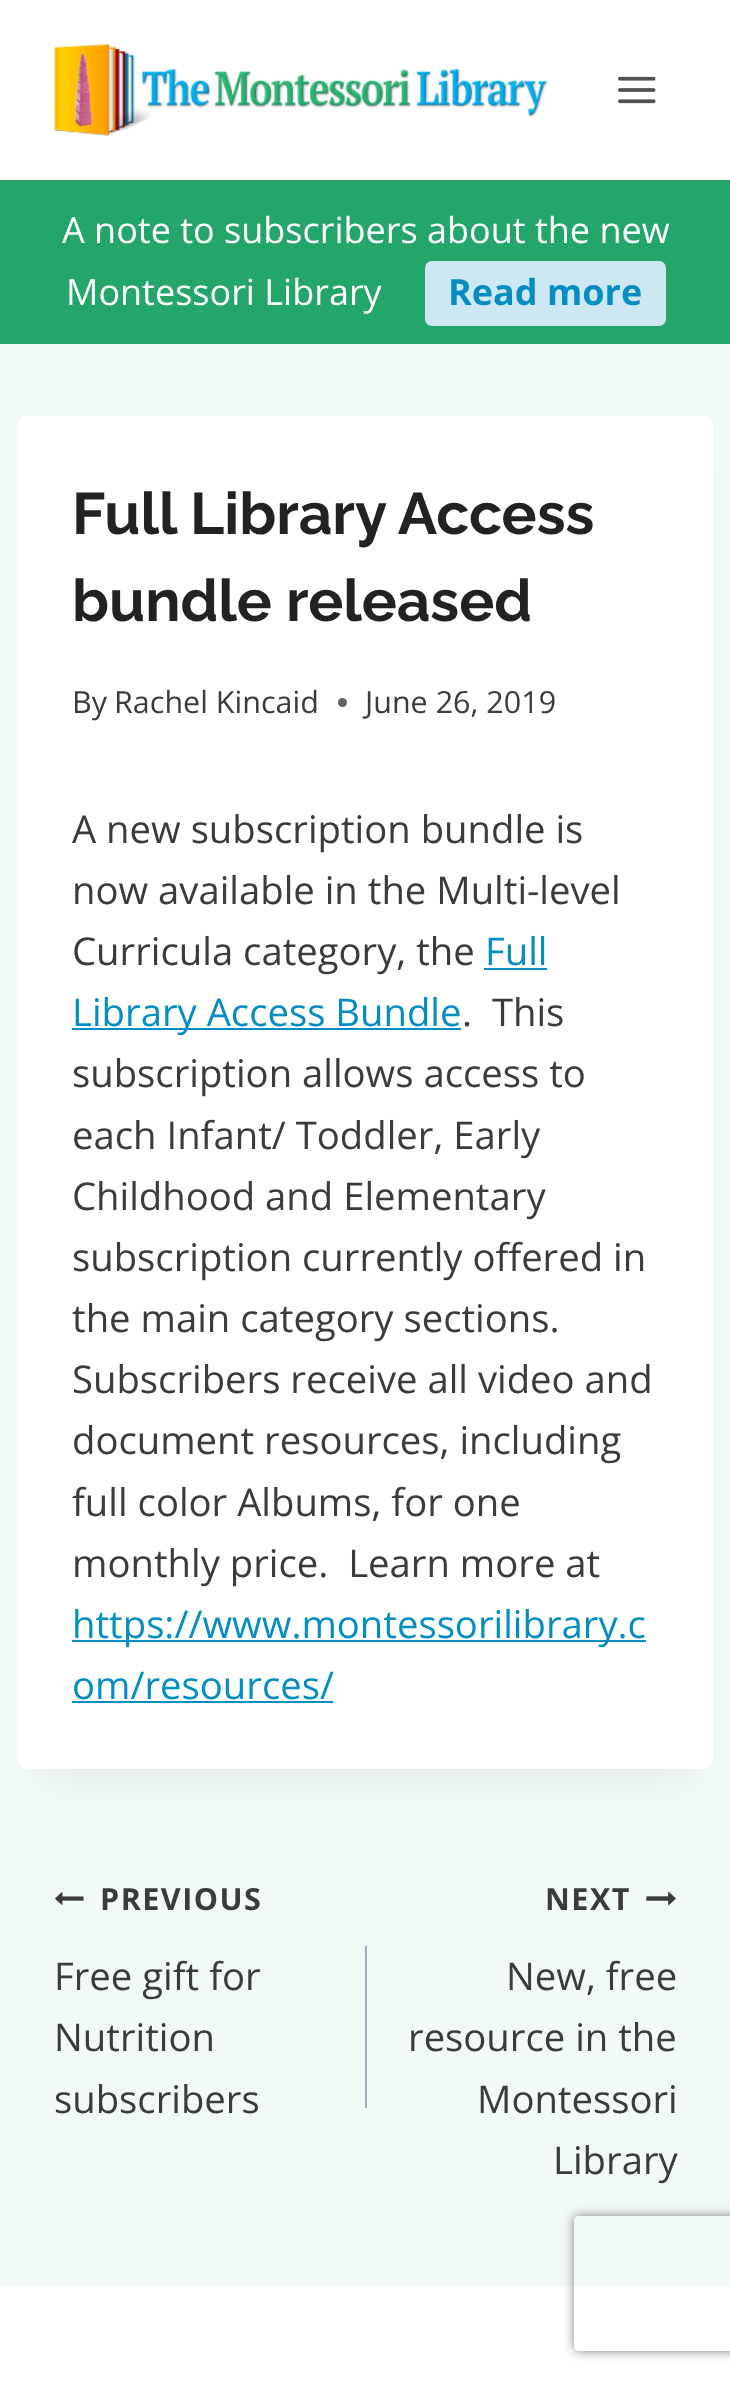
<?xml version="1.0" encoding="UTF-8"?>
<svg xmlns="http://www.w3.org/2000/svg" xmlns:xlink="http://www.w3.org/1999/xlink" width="730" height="2381">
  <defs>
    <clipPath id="clip1"><path d="M 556 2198 h 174 v 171 h -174 z m 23 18 h 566 c 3 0 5 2 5 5 v 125 c 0 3 -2 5 -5 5 h -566 c -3 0 -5 -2 -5 -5 v -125 c 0 -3 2 -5 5 -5 z" clip-rule="evenodd" /></clipPath>
  </defs>
  <rect width="100%" height="100%" fill="#f2faf6" />
  <rect width="730" height="180" fill="#ffffff" />
  <image x="54" y="44" width="494" height="92" xlink:href="image1.png" />
  <image x="618" y="76" width="38" height="28" xlink:href="image2.png" />
  <rect y="180" width="730" height="164" fill="#24a66a" />
  <rect x="425" y="261" width="241" height="65" rx="7" fill="#cde8f3" />
  <rect x="41" y="473" width="650" height="1307" fill="#000000" fill-opacity="0.05" filter="blur(17px)" />
  <rect x="18" y="416" width="695" height="1353" rx="9" fill="#ffffff" />
  <circle cx="342.5" cy="702.5" r="4.5" fill="#626262" />
  <rect x="484" y="968" width="63" height="2" fill="#038dc2" />
  <rect x="72" y="1028" width="389" height="2" fill="#038dc2" />
  <rect x="72" y="1640" width="574" height="2" fill="#038dc2" />
  <rect x="72" y="1701" width="261" height="2" fill="#038dc2" />
  <image x="55" y="1892" width="29" height="13" xlink:href="image3.png" />
  <rect x="365" y="1946" width="2" height="162" fill="#a0aec0" />
  <image x="646" y="1892" width="30" height="14" xlink:href="image4.png" />
  <rect y="2286" width="730" height="95" fill="#ffffff" />
  <g clip-path="url(#clip1)">
    <rect x="574" y="2216" width="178" height="135" rx="5" fill="#808080" filter="blur(5.5px)" />
  </g>
  <text x="62" y="243" style="font-family: Open Sans; font-size: 36px; fill: #ffffff">A note to subscribers about the new</text>
  <text x="66" y="305" style="font-family: Open Sans; font-size: 36px; fill: #ffffff">Montessori Library</text>
  <text x="448" y="305" style="font-family: Open Sans; font-size: 36px; font-weight: bold; fill: #038dc2">Read more</text>
  <text x="72" y="534" style="font-family: Raleway; font-size: 58.5px; font-weight: 100; fill: #222222">Full Library Access</text>
  <text x="72" y="621" style="font-family: Raleway; font-size: 58.5px; font-weight: 100; fill: #222222">bundle released</text>
  <text x="72" y="713" style="font-family: Open Sans; font-size: 30.5px; fill: #3b3b3b">By</text>
  <text x="114" y="713" style="font-family: Open Sans; font-size: 30.5px; fill: #3b3b3b">Rachel Kincaid</text>
  <text x="365" y="713" style="font-family: Open Sans; font-size: 30.5px; fill: #3b3b3b">June 26, 2019</text>
  <text x="72" y="843" style="font-family: Open Sans; font-size: 38.25px; fill: #3b3b3b">A new subscription bundle is</text>
  <text x="72" y="904" style="font-family: Open Sans; font-size: 38.25px; fill: #3b3b3b">now available in the Multi-level</text>
  <text x="72" y="965" style="font-family: Open Sans; font-size: 38.25px; fill: #3b3b3b">Curricula category, the</text>
  <text x="485" y="965" style="font-family: Open Sans; font-size: 38.25px; fill: #038dc2">Full</text>
  <text x="72" y="1026" style="font-family: Open Sans; font-size: 38.25px; fill: #038dc2">Library Access Bundle</text>
  <text x="462" y="1026" style="font-family: Open Sans; font-size: 38.25px; fill: #3b3b3b" xml:space="preserve">.  This</text>
  <text x="72" y="1087" style="font-family: Open Sans; font-size: 38.25px; fill: #3b3b3b">subscription allows access to</text>
  <text x="72" y="1149" style="font-family: Open Sans; font-size: 38.25px; fill: #3b3b3b">each Infant/ Toddler, Early</text>
  <text x="72" y="1210" style="font-family: Open Sans; font-size: 38.25px; fill: #3b3b3b">Childhood and Elementary</text>
  <text x="72" y="1271" style="font-family: Open Sans; font-size: 38.25px; fill: #3b3b3b">subscription currently offered in</text>
  <text x="72" y="1332" style="font-family: Open Sans; font-size: 38.25px; fill: #3b3b3b">the main category sections.</text>
  <text x="72" y="1393" style="font-family: Open Sans; font-size: 38.25px; fill: #3b3b3b">Subscribers receive all video and</text>
  <text x="72" y="1454" style="font-family: Open Sans; font-size: 38.25px; fill: #3b3b3b">document resources, including</text>
  <text x="72" y="1516" style="font-family: Open Sans; font-size: 38.25px; fill: #3b3b3b">full color Albums, for one</text>
  <text x="72" y="1577" style="font-family: Open Sans; font-size: 38.25px; fill: #3b3b3b" xml:space="preserve">monthly price.  Learn more at</text>
  <text x="72" y="1638" style="font-family: Open Sans; font-size: 38.25px; fill: #038dc2">https://www.montessorilibrary.c</text>
  <text x="72" y="1699" style="font-family: Open Sans; font-size: 38.25px; fill: #038dc2">om/resources/</text>
  <text x="100" y="1910" style="font-family: Open Sans; font-size: 30.5px; font-weight: bold; letter-spacing: 1.5px; fill: #3b3b3b">PREVIOUS</text>
  <text x="54" y="1990" style="font-family: Open Sans; font-size: 38.25px; fill: #3b3b3b">Free gift for</text>
  <text x="54" y="2051" style="font-family: Open Sans; font-size: 38.25px; fill: #3b3b3b">Nutrition</text>
  <text x="54" y="2113" style="font-family: Open Sans; font-size: 38.25px; fill: #3b3b3b">subscribers</text>
  <text x="545" y="1910" style="font-family: Open Sans; font-size: 30.5px; font-weight: bold; letter-spacing: 1.5px; fill: #3b3b3b">NEXT</text>
  <text x="506" y="1990" style="font-family: Open Sans; font-size: 38.25px; fill: #3b3b3b">New, free</text>
  <text x="408" y="2051" style="font-family: Open Sans; font-size: 38.25px; fill: #3b3b3b">resource in the</text>
  <text x="477" y="2113" style="font-family: Open Sans; font-size: 38.25px; fill: #3b3b3b">Montessori</text>
  <text x="553" y="2174" style="font-family: Open Sans; font-size: 38.25px; fill: #3b3b3b">Library</text>
</svg>
